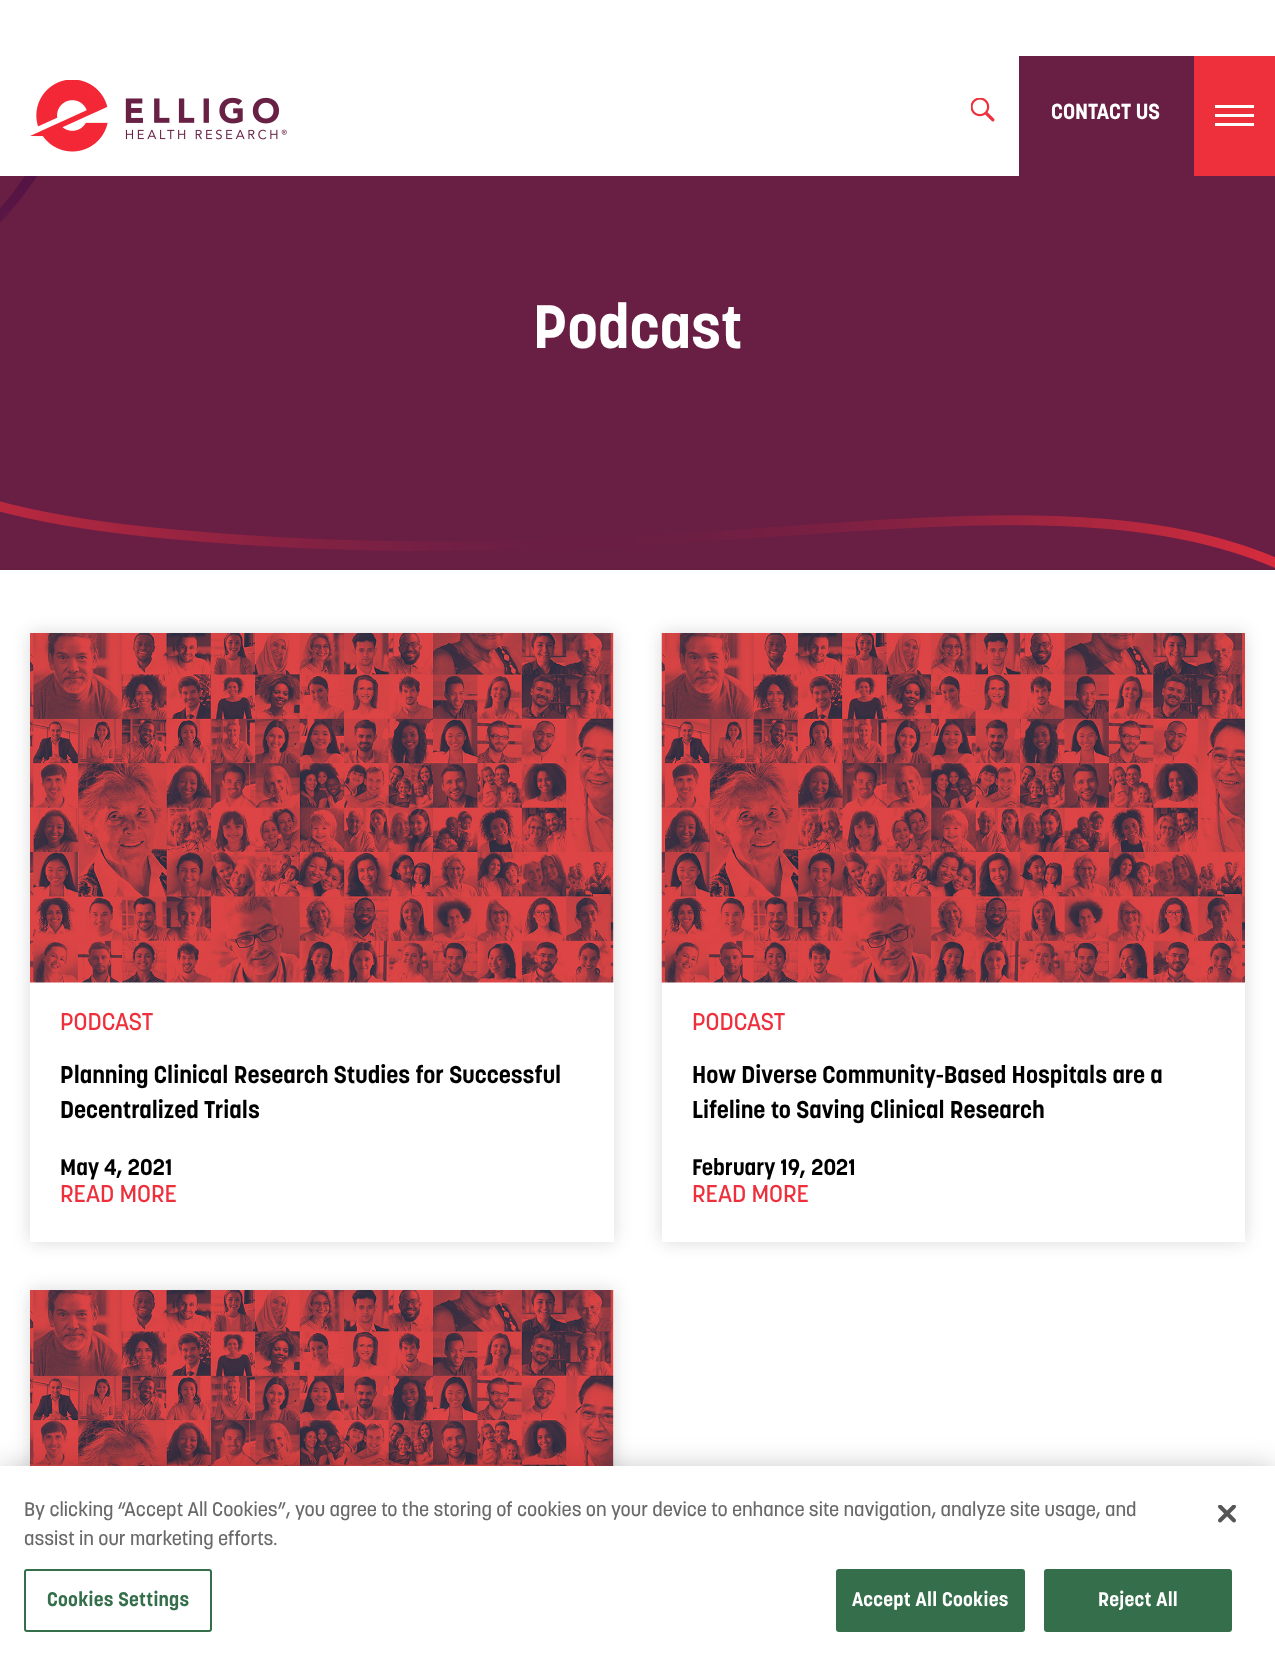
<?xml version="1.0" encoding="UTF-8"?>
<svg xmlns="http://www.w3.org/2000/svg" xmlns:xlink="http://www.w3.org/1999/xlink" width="1275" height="1661">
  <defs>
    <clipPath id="clip1"><path d="M 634 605 h 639 v 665 h -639 z m 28 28 h 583 v 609 h -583 z" clip-rule="evenodd" /></clipPath>
  </defs>
  <rect width="100%" height="100%" fill="#ffffff" />
  <image x="30" y="80" width="257" height="72" xlink:href="image1.png" />
  <image x="971" y="98" width="24" height="24" xlink:href="image2.png" />
  <rect x="1019" y="56" width="175" height="120" fill="#691e44" />
  <rect x="1194" y="56" width="81" height="120" fill="#ee303c" />
  <rect x="1215" y="105" width="39" height="3" fill="#ffffff" />
  <rect x="1215" y="114" width="39" height="3" fill="#ffffff" />
  <rect x="1215" y="123" width="39" height="3" fill="#ffffff" />
  <rect y="176" width="1275" height="394" fill="#691e44" />
  <image x="0" y="176" width="1275" height="392" xlink:href="image3.png" />
  <rect x="30" y="633" width="584" height="609" fill="#000000" fill-opacity="0.15" filter="blur(9px)" />
  <rect x="30" y="633" width="584" height="609" fill="#ffffff" />
  <image x="30" y="633" width="584" height="350" xlink:href="image4.png" />
  <g clip-path="url(#clip1)">
    <rect x="662" y="633" width="583" height="609" fill="#000000" fill-opacity="0.15" filter="blur(9px)" />
  </g>
  <image x="661" y="633" width="584" height="350" xlink:href="image5.png" />
  <rect x="30" y="1290" width="584" height="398" fill="#000000" fill-opacity="0.15" filter="blur(9px)" />
  <rect x="613" y="1290" width="1" height="176" fill="#ffffff" />
  <image x="30" y="1290" width="584" height="176" xlink:href="image6.png" />
  <rect y="1466" width="1275" height="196" fill="#000000" fill-opacity="0.2" filter="blur(13.5px)" />
  <rect y="1466" width="1275" height="195" fill="#ffffff" />
  <rect x="25" y="1570" width="186" height="61" rx="2" fill="none" stroke="#346e4a" stroke-width="2" />
  <rect x="837" y="1570" width="187" height="61" rx="2" fill="#346e4a" stroke="#346e4a" stroke-width="2" />
  <rect x="1045" y="1570" width="186" height="61" rx="2" fill="#346e4a" stroke="#346e4a" stroke-width="2" />
  <image x="1218" y="1505" width="18" height="18" xlink:href="image7.png" />
  <text x="1051" y="119" style="font-family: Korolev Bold; font-size: 21.5px; font-weight: bold; fill: #ffffff">CONTACT US</text>
  <text x="533" y="348" style="font-family: Korolev Bold; font-size: 60.5px; font-weight: bold; fill: #ffffff">Podcast</text>
  <text x="60" y="1030" style="font-family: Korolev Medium; font-size: 24px; font-weight: 500; fill: #ee303c">PODCAST</text>
  <text x="60" y="1083" style="font-family: Korolev Bold; font-size: 24px; font-weight: bold; fill: #000000">Planning Clinical Research Studies for Successful</text>
  <text x="60" y="1118" style="font-family: Korolev Bold; font-size: 24px; font-weight: bold; fill: #000000">Decentralized Trials</text>
  <text x="60" y="1175" style="font-family: Korolev Bold; font-size: 22.5px; font-weight: bold; fill: #000000">May 4, 2021</text>
  <text x="60" y="1202" style="font-family: Korolev Medium; font-size: 24px; font-weight: 500; fill: #ee303c">READ MORE</text>
  <text x="692" y="1030" style="font-family: Korolev Medium; font-size: 24px; font-weight: 500; fill: #ee303c">PODCAST</text>
  <text x="692" y="1083" style="font-family: Korolev Bold; font-size: 24px; font-weight: bold; fill: #000000">How Diverse Community-Based Hospitals are a</text>
  <text x="692" y="1118" style="font-family: Korolev Bold; font-size: 24px; font-weight: bold; fill: #000000">Lifeline to Saving Clinical Research</text>
  <text x="692" y="1175" style="font-family: Korolev Bold; font-size: 22.5px; font-weight: bold; fill: #000000">February 19, 2021</text>
  <text x="692" y="1202" style="font-family: Korolev Medium; font-size: 24px; font-weight: 500; fill: #ee303c">READ MORE</text>
  <text x="24" y="1516" style="font-family: Korolev Medium; font-size: 19.5px; font-weight: 500; fill: #696969">By clicking “Accept All Cookies”, you agree to the storing of cookies on your device to enhance site navigation, analyze site usage, and</text>
  <text x="24" y="1545" style="font-family: Korolev Medium; font-size: 19.5px; font-weight: 500; fill: #696969">assist in our marketing efforts.</text>
  <text x="47" y="1606" style="font-family: Korolev Bold; font-size: 19.5px; font-weight: bold; letter-spacing: 0.25px; fill: #346e4a">Cookies Settings</text>
  <text x="852" y="1606" style="font-family: Korolev Bold; font-size: 19.5px; font-weight: bold; letter-spacing: 0.25px; fill: #ffffff">Accept All Cookies</text>
  <text x="1098" y="1606" style="font-family: Korolev Bold; font-size: 19.5px; font-weight: bold; letter-spacing: 0.25px; fill: #ffffff">Reject All</text>
</svg>
